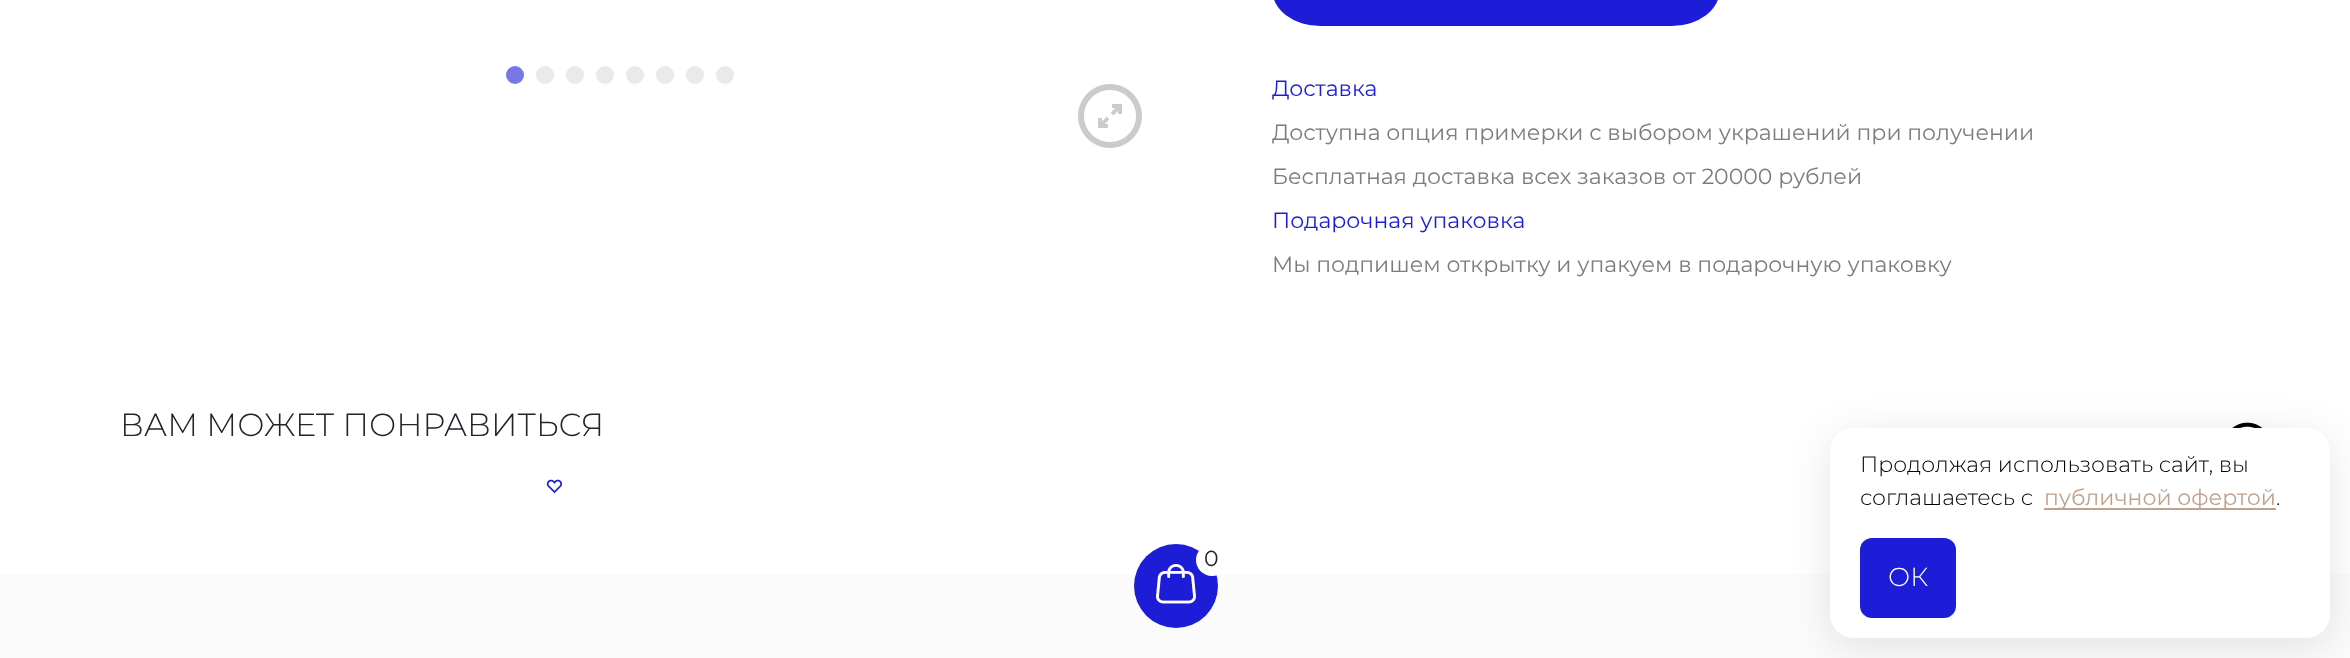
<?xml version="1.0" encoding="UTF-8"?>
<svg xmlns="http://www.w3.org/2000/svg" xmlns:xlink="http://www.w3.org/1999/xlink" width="2350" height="658">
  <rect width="100%" height="100%" fill="#ffffff" />
  <circle cx="515" cy="75" r="9" fill="#7777e7" />
  <circle cx="545" cy="75" r="9" fill="#eaeaea" />
  <circle cx="575" cy="75" r="9" fill="#eaeaea" />
  <circle cx="605" cy="75" r="9" fill="#eaeaea" />
  <circle cx="635" cy="75" r="9" fill="#eaeaea" />
  <circle cx="665" cy="75" r="9" fill="#eaeaea" />
  <circle cx="695" cy="75" r="9" fill="#eaeaea" />
  <circle cx="725" cy="75" r="9" fill="#eaeaea" />
  <image x="1078" y="84" width="64" height="64" xlink:href="image1.png" />
  <rect x="1272" y="-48" width="448" height="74" rx="48" fill="#1d1dd7" />
  <image x="546" y="479" width="16" height="15" xlink:href="image2.png" />
  <image x="2232" y="422" width="31" height="6" xlink:href="image3.png" />
  <rect y="574" width="2350" height="84" fill="#fbfbfb" />
  <circle cx="1176" cy="586" r="42" fill="#1d1dd7" />
  <circle cx="1212" cy="560" r="16" fill="#ffffff" />
  <image x="1156" y="564" width="40" height="40" xlink:href="image4.png" />
  <rect x="1830" y="436" width="500" height="210" rx="24" fill="#000000" fill-opacity="0.1" filter="blur(20px)" />
  <rect x="1830" y="428" width="500" height="210" rx="24" fill="#ffffff" />
  <rect x="2044" y="508" width="232" height="2" fill="#bda38f" />
  <rect x="1860" y="538" width="96" height="80" rx="12" fill="#1d1dd7" />
  <text x="1272" y="96" style="font-family: 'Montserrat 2'; font-size: 22px; font-weight: 100; fill: #1d1dd7">Доставка</text>
  <text x="1272" y="140" style="font-family: 'Montserrat 2'; font-size: 22px; font-weight: 100; fill: #7c7c80">Доступна опция примерки с выбором украшений при получении</text>
  <text x="1272" y="184" style="font-family: 'Montserrat 2'; font-size: 22px; font-weight: 100; fill: #7c7c80">Бесплатная доставка всех заказов от 20000 рублей</text>
  <text x="1272" y="228" style="font-family: 'Montserrat 2'; font-size: 22px; font-weight: 100; fill: #1d1dd7">Подарочная упаковка</text>
  <text x="1272" y="272" style="font-family: 'Montserrat 2'; font-size: 22px; font-weight: 100; fill: #7c7c80">Мы подпишем открытку и упакуем в подарочную упаковку</text>
  <text x="120" y="436" style="font-family: Montserrat; font-size: 32px; font-weight: 100; fill: #23232c">ВАМ МОЖЕТ ПОНРАВИТЬСЯ</text>
  <text x="1204" y="566" style="font-family: 'Montserrat 2'; font-size: 22px; font-weight: 100; fill: #23232c">0</text>
  <text x="1860" y="472" style="font-family: Montserrat; font-size: 22px; font-weight: 100; fill: #000000">Продолжая использовать сайт, вы</text>
  <text x="1860" y="505" style="font-family: Montserrat; font-size: 22px; font-weight: 100; fill: #000000">соглашаетесь с</text>
  <text x="2044" y="505" style="font-family: 'Montserrat 2'; font-size: 22px; font-weight: 100; fill: #bda38f">публичной офертой</text>
  <text x="2276" y="505" style="font-family: Montserrat; font-size: 22px; font-weight: 100; fill: #000000">.</text>
  <text x="1888" y="586" style="font-family: Montserrat; font-size: 26px; font-weight: 100; fill: #ffffff">ОК</text>
</svg>
